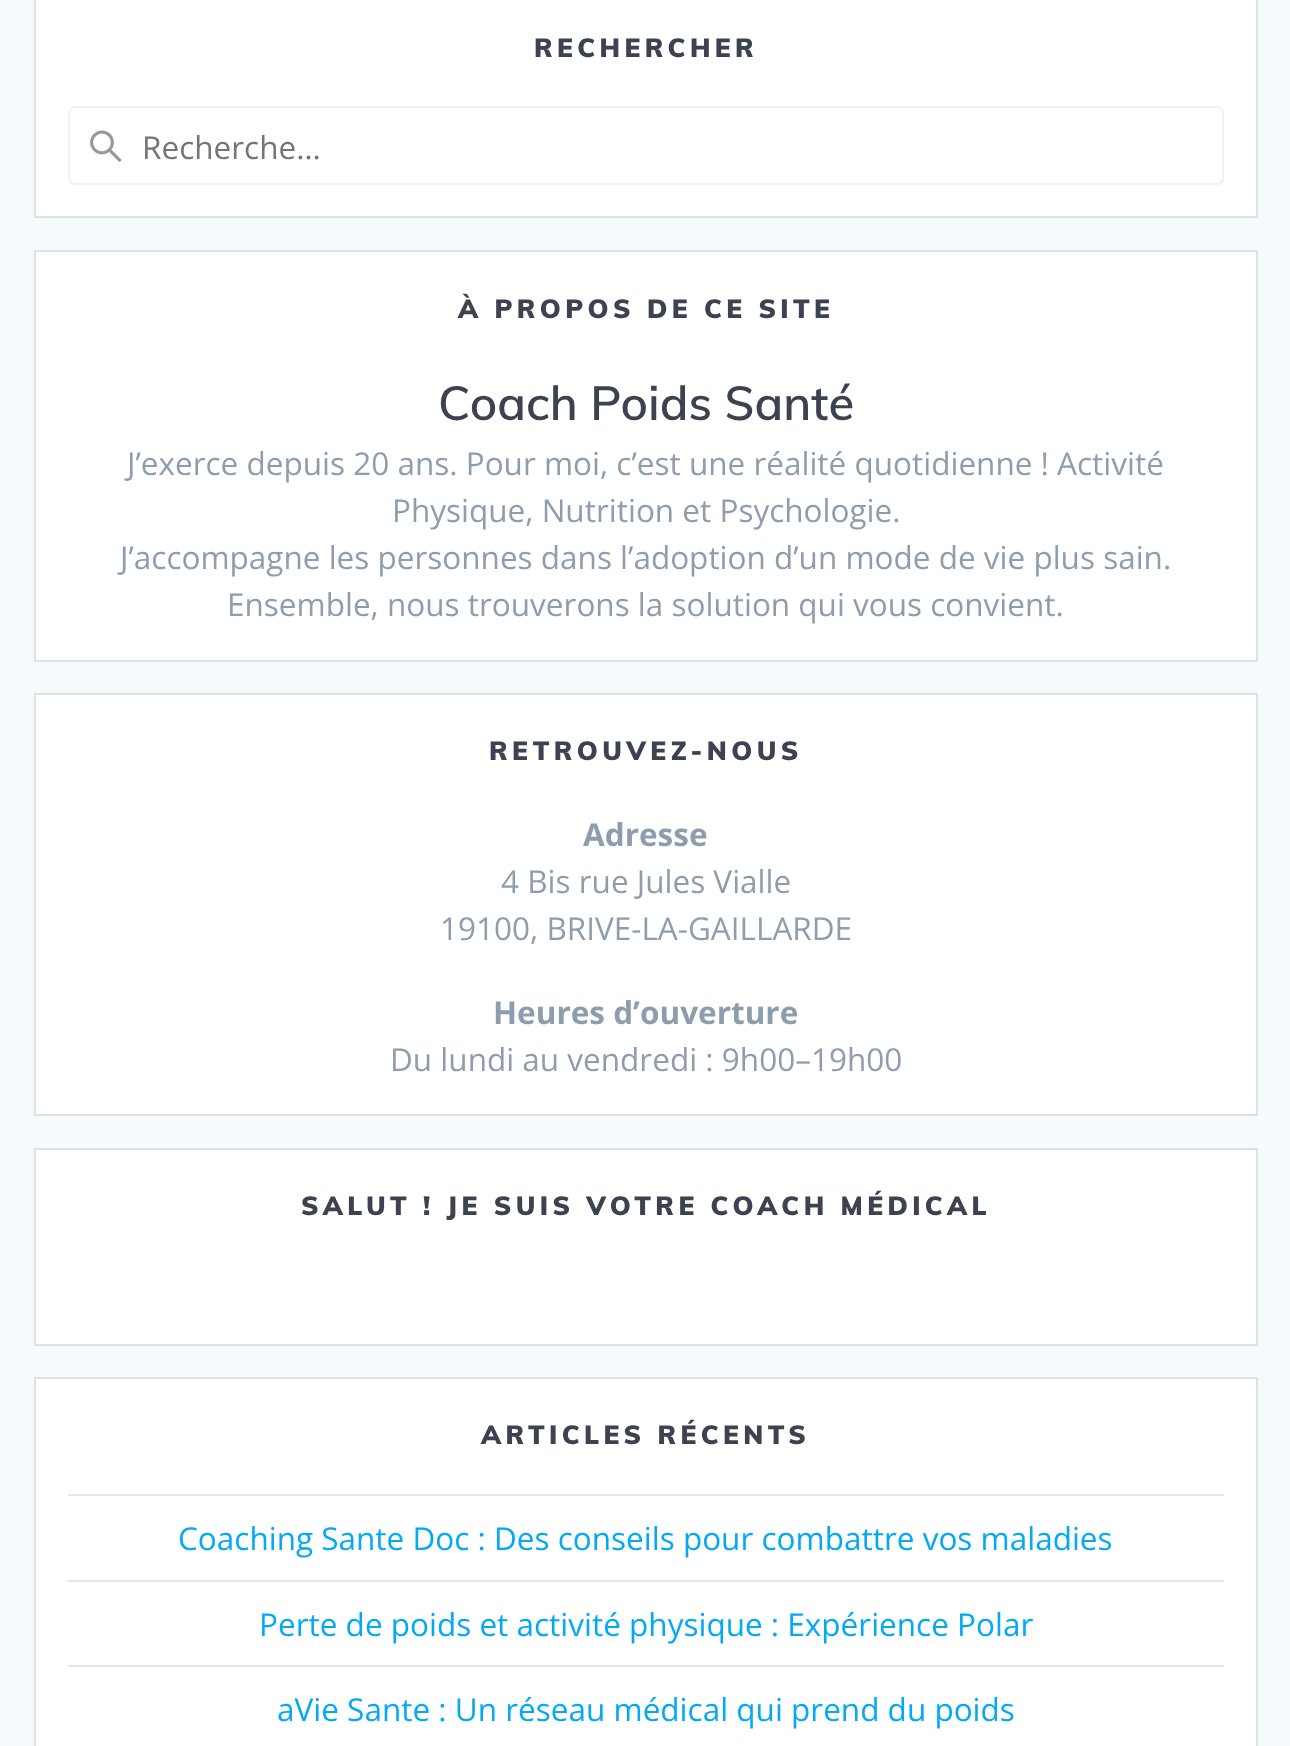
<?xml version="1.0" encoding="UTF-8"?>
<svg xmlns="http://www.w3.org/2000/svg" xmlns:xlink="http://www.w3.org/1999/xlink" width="1290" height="1746">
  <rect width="100%" height="100%" fill="#f5fafd" />
  <rect x="35" y="-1" width="1222" height="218" fill="#ffffff" stroke="#e0e1e1" stroke-width="2" />
  <image x="90" y="130" width="32" height="32" xlink:href="image1.png" />
  <rect x="69" y="107" width="1154" height="77" rx="6" fill="none" stroke="#f1f1f1" stroke-width="2" />
  <rect x="35" y="251" width="1222" height="410" fill="#ffffff" stroke="#e0e1e1" stroke-width="2" />
  <rect x="35" y="694" width="1222" height="421" fill="#ffffff" stroke="#e0e1e1" stroke-width="2" />
  <rect x="35" y="1149" width="1222" height="196" fill="#ffffff" stroke="#e0e1e1" stroke-width="2" />
  <rect x="35" y="1378" width="1222" height="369" fill="#ffffff" stroke="#e0e1e1" stroke-width="2" />
  <rect x="68" y="1494" width="1156" height="2" fill="#e6e6e6" />
  <rect x="68" y="1580" width="1156" height="2" fill="#e6e6e6" />
  <rect x="68" y="1665" width="1156" height="2" fill="#e6e6e6" />
  <text x="534" y="57" style="font-family: Muli; font-size: 26.15px; font-weight: 900; letter-spacing: 4.4px; fill: #3c424f">RECHERCHER</text>
  <text x="142" y="159" style="font-family: Open Sans; font-size: 31.5px; fill: #757575">Recherche…</text>
  <text x="458" y="318" style="font-family: Muli; font-size: 26.15px; font-weight: 900; letter-spacing: 4.4px; fill: #3c424f">À PROPOS DE CE SITE</text>
  <text x="438" y="420" style="font-family: Muli; font-size: 47.25px; font-weight: 600; fill: #3c424f">Coach Poids Santé</text>
  <text x="127" y="475" style="font-family: Open Sans; font-size: 31.5px; fill: #8e9dae">J’exerce depuis 20 ans. Pour moi, c’est une réalité quotidienne ! Activité</text>
  <text x="392" y="522" style="font-family: Open Sans; font-size: 31.5px; fill: #8e9dae">Physique, Nutrition et Psychologie.</text>
  <text x="120" y="569" style="font-family: Open Sans; font-size: 31.5px; fill: #8e9dae">J’accompagne les personnes dans l’adoption d’un mode de vie plus sain.</text>
  <text x="227" y="616" style="font-family: Open Sans; font-size: 31.5px; fill: #8e9dae">Ensemble, nous trouverons la solution qui vous convient.</text>
  <text x="489" y="760" style="font-family: Muli; font-size: 26.15px; font-weight: 900; letter-spacing: 4.4px; fill: #3c424f">RETROUVEZ-NOUS</text>
  <text x="583" y="846" style="font-family: Open Sans; font-size: 31.5px; font-weight: bold; fill: #8e9dae">Adresse</text>
  <text x="501" y="893" style="font-family: Open Sans; font-size: 31.5px; fill: #8e9dae">4 Bis rue Jules Vialle</text>
  <text x="440" y="940" style="font-family: Open Sans; font-size: 31.5px; fill: #8e9dae">19100, BRIVE-LA-GAILLARDE</text>
  <text x="493" y="1024" style="font-family: Open Sans; font-size: 31.5px; font-weight: bold; fill: #8e9dae">Heures d’ouverture</text>
  <text x="390" y="1071" style="font-family: Open Sans; font-size: 31.5px; fill: #8e9dae">Du lundi au vendredi : 9h00–19h00</text>
  <text x="301" y="1215" style="font-family: Muli; font-size: 26.15px; font-weight: 900; letter-spacing: 4.4px; fill: #3c424f">SALUT ! JE SUIS VOTRE COACH MÉDICAL</text>
  <text x="481" y="1444" style="font-family: Muli; font-size: 26.15px; font-weight: 900; letter-spacing: 4.4px; fill: #3c424f">ARTICLES RÉCENTS</text>
  <text x="178" y="1550" style="font-family: Open Sans; font-size: 31.5px; fill: #03a9f4">Coaching Sante Doc : Des conseils pour combattre vos maladies</text>
  <text x="259" y="1636" style="font-family: Open Sans; font-size: 31.5px; fill: #03a9f4">Perte de poids et activité physique : Expérience Polar</text>
  <text x="277" y="1721" style="font-family: Open Sans; font-size: 31.5px; fill: #03a9f4">aVie Sante : Un réseau médical qui prend du poids</text>
</svg>
